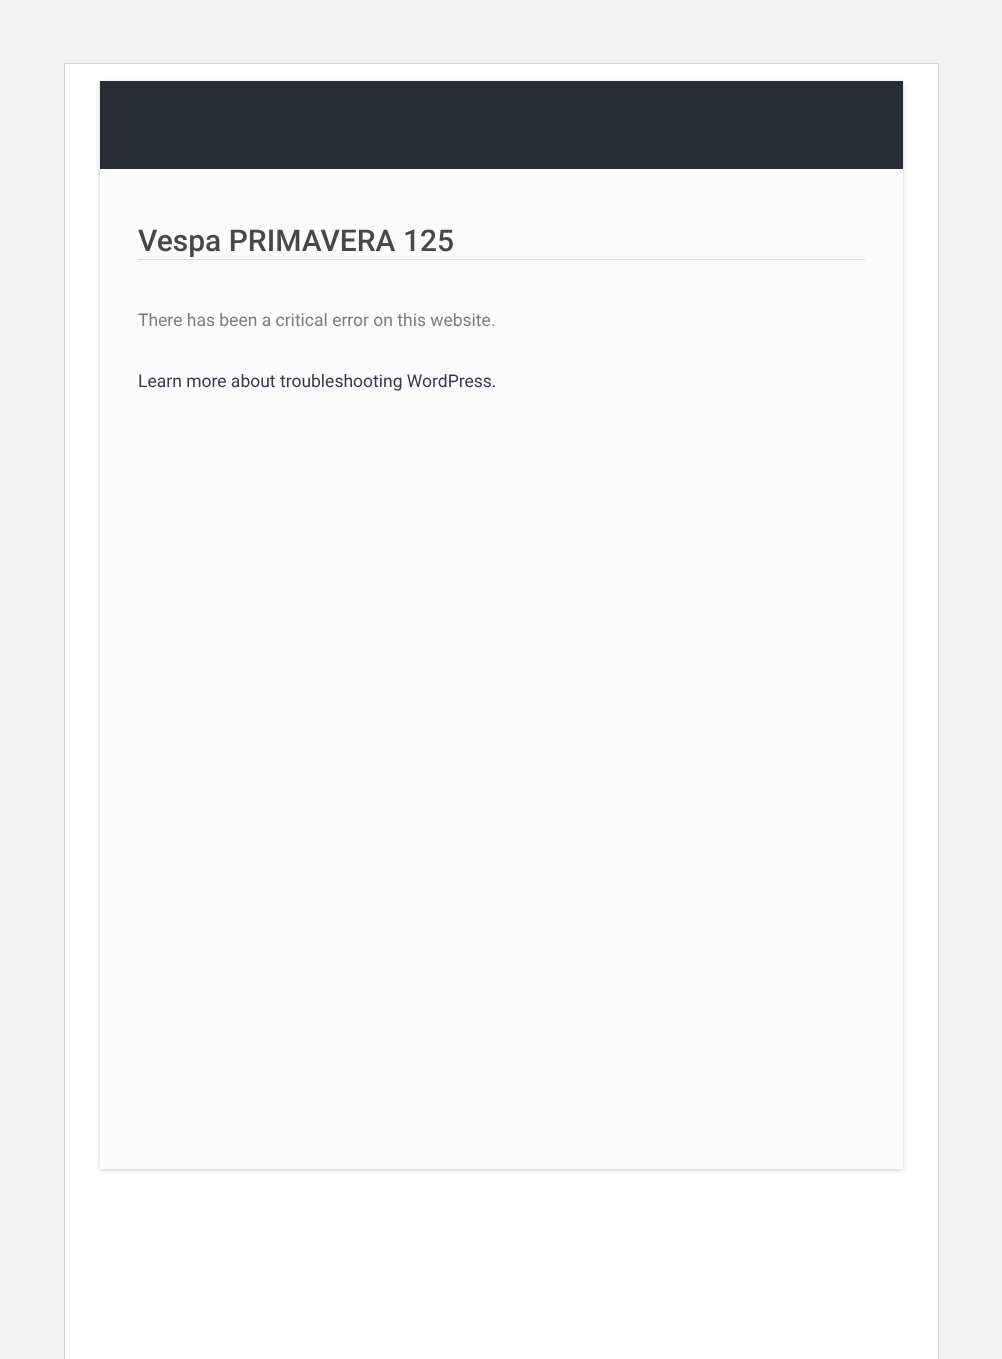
<?xml version="1.0" encoding="UTF-8"?>
<svg xmlns="http://www.w3.org/2000/svg" xmlns:xlink="http://www.w3.org/1999/xlink" width="1002" height="1359">
  <rect width="100%" height="100%" fill="#f1f1f1" />
  <rect x="64.5" y="63.5" width="874" height="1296" fill="#ffffff" stroke="#ccd0d4" />
  <rect x="100" y="83" width="803" height="1087" fill="#000000" fill-opacity="0.2" filter="blur(2.5px)" />
  <rect x="100" y="169" width="803" height="1000" fill="#fcfcfc" />
  <rect x="100" y="81" width="803" height="88" fill="#282d33" />
  <rect x="138" y="259" width="727" height="1" fill="#dadada" />
  <text x="138" y="251" style="font-family: Roboto; font-size: 30px; font-weight: 500; fill: #484848">Vespa PRIMAVERA 125</text>
  <text x="138" y="326" style="font-family: Roboto; font-size: 17.5px; fill: #7c7c7c">There has been a critical error on this website.</text>
  <text x="138" y="387" style="font-family: Roboto; font-size: 17.5px; fill: #39374d">Learn more about troubleshooting WordPress.</text>
</svg>
